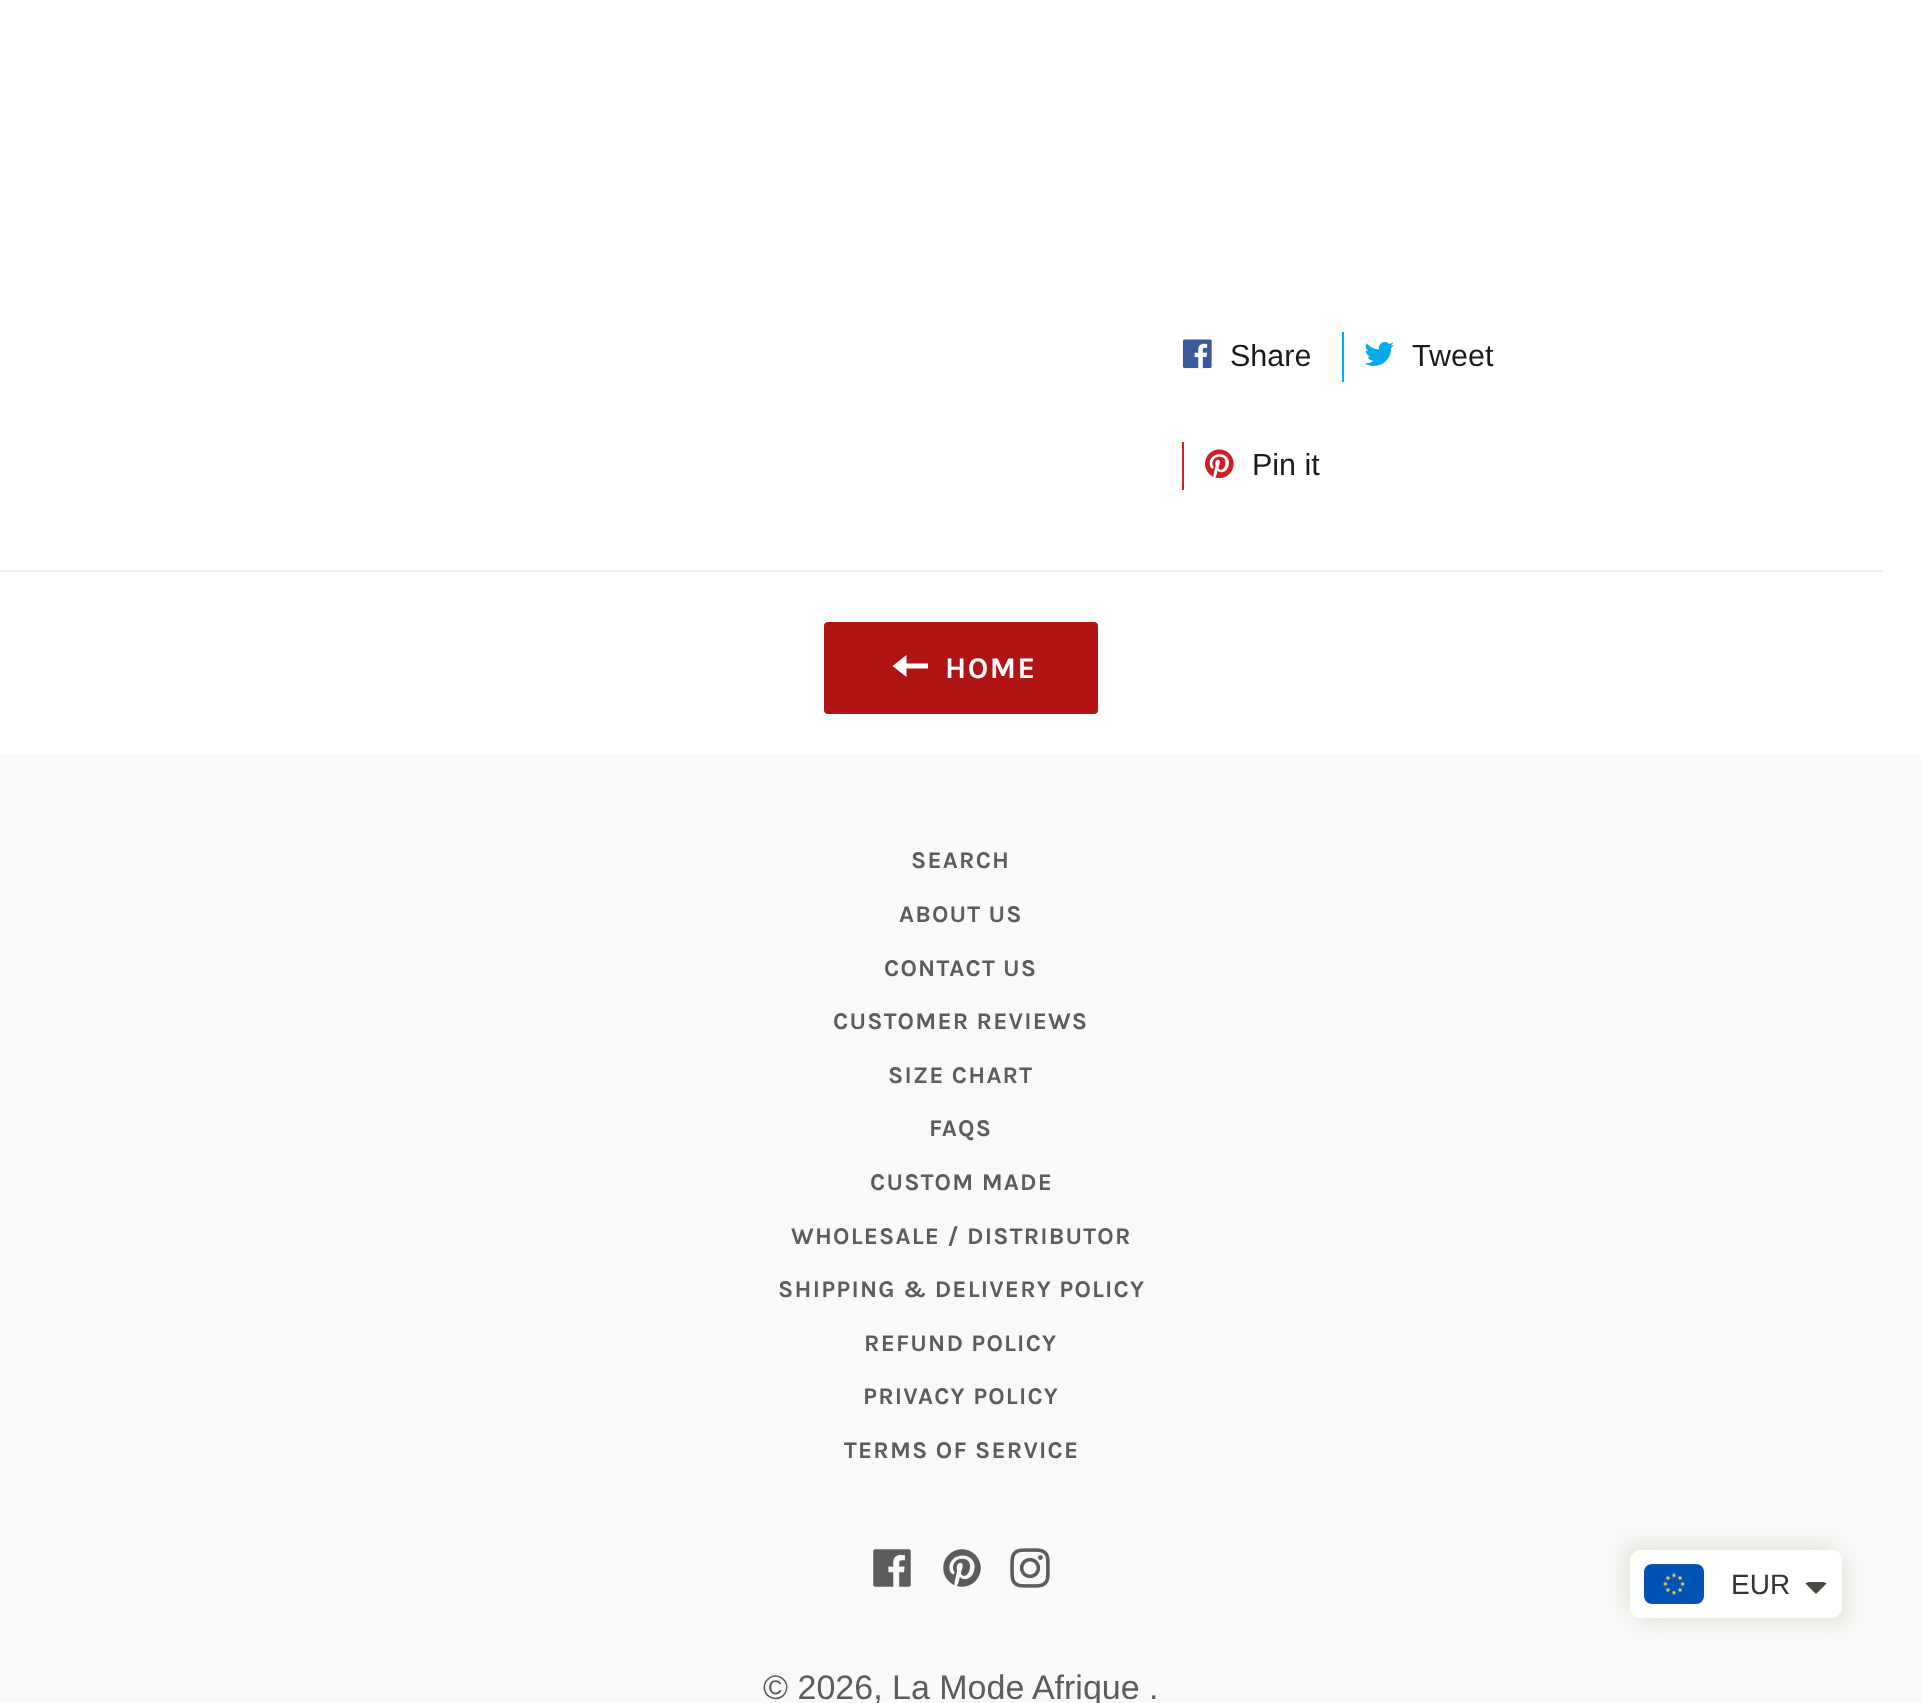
<?xml version="1.0" encoding="UTF-8"?>
<svg xmlns="http://www.w3.org/2000/svg" xmlns:xlink="http://www.w3.org/1999/xlink" width="1921" height="1703">
  <rect width="100%" height="100%" fill="#ffffff" />
  <image x="1182" y="339" width="30" height="30" xlink:href="image1.png" />
  <rect x="1342" y="332" width="2" height="50" fill="#00aced" />
  <image x="1364" y="342" width="30" height="24" xlink:href="image2.png" />
  <rect x="1182" y="442" width="2" height="48" fill="#cb2027" />
  <image x="1205" y="449" width="29" height="30" xlink:href="image3.png" />
  <rect y="570" width="1882" height="2" fill="#eeeeee" />
  <rect x="824" y="622" width="274" height="92" rx="4" fill="#b11414" />
  <path d="M 906.5 663.5 v -8.5 l -14 11 l 14 11 v -8.5 h 21.5 v -5 z" fill="#ffffff" />
  <rect y="754" width="1921" height="949" fill="#f9f9f9" />
  <image x="873" y="1549" width="38" height="38" xlink:href="image4.png" />
  <image x="943" y="1549" width="38" height="38" xlink:href="image5.png" />
  <image x="1010" y="1548" width="40" height="40" xlink:href="image6.png" />
  <rect x="1622" y="1542" width="212" height="68" rx="10" fill="#e8e8e2" filter="blur(9px)" />
  <rect x="1638" y="1558" width="212" height="68" rx="10" fill="#e8e8e2" filter="blur(9px)" />
  <rect x="1630" y="1550" width="212" height="68" rx="10" fill="#ffffff" />
  <image x="1644" y="1564" width="60" height="40" xlink:href="image7.png" />
  <path d="M 1810 1582 c -2 0 -3 0.5 -4.5 1.5 l 10.5 10.5 l 10.5 -10.5 c -1.5 -1 -2.5 -1.5 -4.5 -1.5 z" fill="#474942" />
  <text x="1230" y="366" style="font-family: Arimo; font-size: 30.5px; fill: #1a1a1a">Share</text>
  <text x="1412" y="366" style="font-family: Arimo; font-size: 30.5px; fill: #1a1a1a">Tweet</text>
  <text x="1252" y="475" style="font-family: Arimo; font-size: 30.5px; fill: #1a1a1a">Pin it</text>
  <text x="945" y="678" style="font-family: Karla; font-size: 30px; font-weight: bold; letter-spacing: 1.5px; fill: #ffffff">HOME</text>
  <text x="911" y="868" style="font-family: Karla; font-size: 24px; font-weight: bold; letter-spacing: 1.2px; fill: #5c5c5c">SEARCH</text>
  <text x="899" y="922" style="font-family: Karla; font-size: 24px; font-weight: bold; letter-spacing: 1.2px; fill: #5c5c5c">ABOUT US</text>
  <text x="884" y="976" style="font-family: Karla; font-size: 24px; font-weight: bold; letter-spacing: 1.2px; fill: #5c5c5c">CONTACT US</text>
  <text x="833" y="1029" style="font-family: Karla; font-size: 24px; font-weight: bold; letter-spacing: 1.2px; fill: #5c5c5c">CUSTOMER REVIEWS</text>
  <text x="888" y="1083" style="font-family: Karla; font-size: 24px; font-weight: bold; letter-spacing: 1.2px; fill: #5c5c5c">SIZE CHART</text>
  <text x="929" y="1136" style="font-family: Karla; font-size: 24px; font-weight: bold; letter-spacing: 1.2px; fill: #5c5c5c">FAQS</text>
  <text x="870" y="1190" style="font-family: Karla; font-size: 24px; font-weight: bold; letter-spacing: 1.2px; fill: #5c5c5c">CUSTOM MADE</text>
  <text x="791" y="1244" style="font-family: Karla; font-size: 24px; font-weight: bold; letter-spacing: 1.2px; fill: #5c5c5c">WHOLESALE / DISTRIBUTOR</text>
  <text x="778" y="1297" style="font-family: Karla; font-size: 24px; font-weight: bold; letter-spacing: 1.2px; fill: #5c5c5c">SHIPPING &amp; DELIVERY POLICY</text>
  <text x="864" y="1351" style="font-family: Karla; font-size: 24px; font-weight: bold; letter-spacing: 1.2px; fill: #5c5c5c">REFUND POLICY</text>
  <text x="863" y="1404" style="font-family: Karla; font-size: 24px; font-weight: bold; letter-spacing: 1.2px; fill: #5c5c5c">PRIVACY POLICY</text>
  <text x="844" y="1458" style="font-family: Karla; font-size: 24px; font-weight: bold; letter-spacing: 1.2px; fill: #5c5c5c">TERMS OF SERVICE</text>
  <text x="763" y="1699" style="font-family: Arimo; font-size: 34px; fill: #5c5c5c">© 2026, La Mode Afrique .</text>
  <text x="1731" y="1594" style="font-family: Arimo; font-size: 28px; fill: #333333">EUR</text>
</svg>
